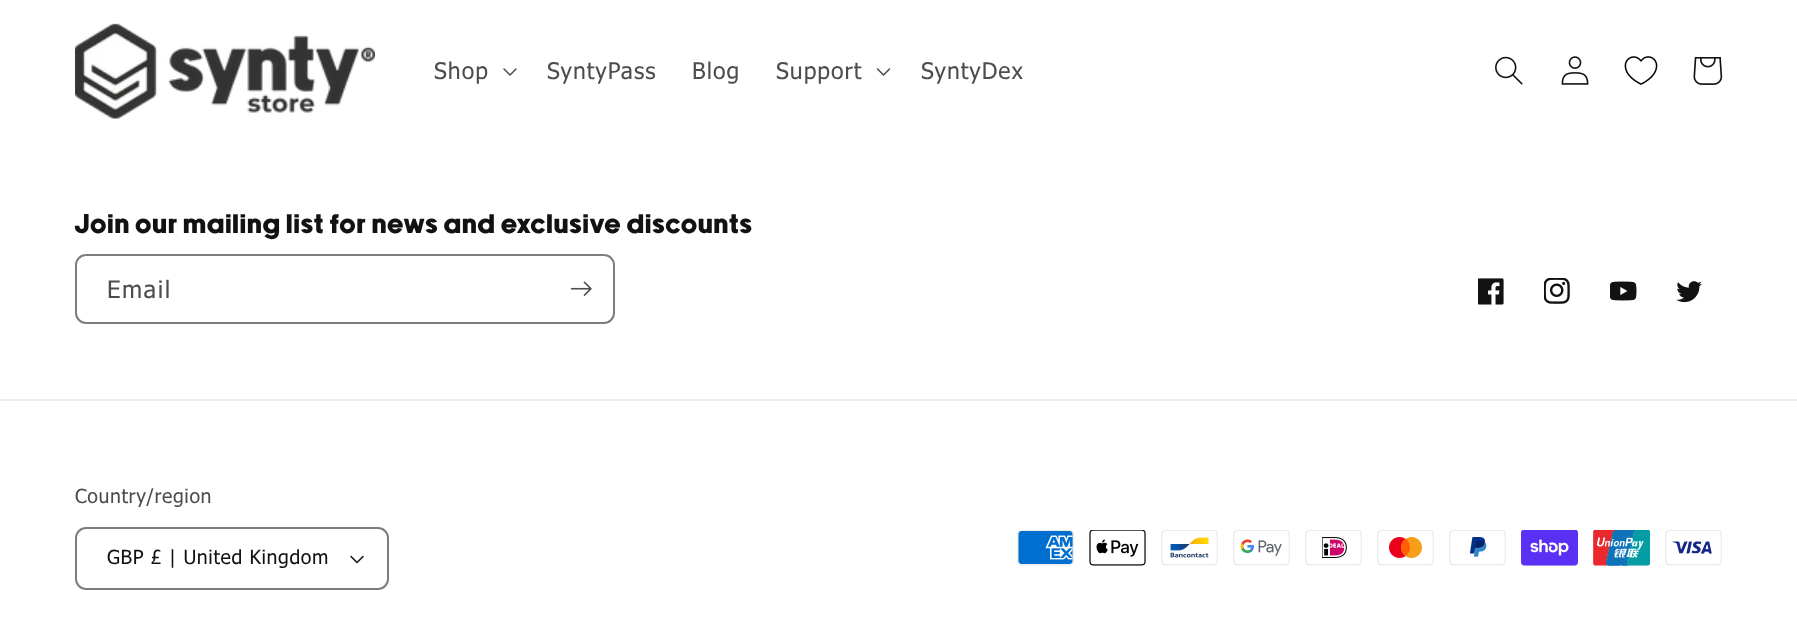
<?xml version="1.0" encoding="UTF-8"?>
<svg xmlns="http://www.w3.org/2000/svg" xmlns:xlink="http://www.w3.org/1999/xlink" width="1797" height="625">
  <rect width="100%" height="100%" fill="#ffffff" />
  <image x="75" y="23" width="300" height="96" xlink:href="image1.png" />
  <image x="503" y="68" width="14" height="8" xlink:href="image2.png" />
  <image x="876" y="68" width="15" height="8" xlink:href="image3.png" />
  <image x="1495" y="56" width="28" height="29" xlink:href="image4.png" />
  <image x="1561" y="56" width="28" height="29" xlink:href="image5.png" />
  <image x="1624" y="56" width="34" height="29" xlink:href="image6.png" />
  <image x="1693" y="57" width="30" height="28" xlink:href="image7.png" />
  <rect x="76" y="255" width="538" height="68" rx="10" fill="none" stroke="#7d7d7d" stroke-width="2" />
  <image x="570" y="281" width="22" height="15" xlink:href="image8.png" />
  <image x="1478" y="278" width="26" height="27" xlink:href="image9.png" />
  <image x="1544" y="278" width="26" height="26" xlink:href="image10.png" />
  <image x="1610" y="281" width="27" height="20" xlink:href="image11.png" />
  <image x="1676" y="281" width="26" height="22" xlink:href="image12.png" />
  <rect y="399" width="1797" height="2" fill="#ececec" />
  <image x="350" y="555" width="14" height="9" xlink:href="image13.png" />
  <rect x="76" y="528" width="312" height="61" rx="10" fill="none" stroke="#7d7d7d" stroke-width="2" />
  <image x="1017" y="530" width="57" height="36" xlink:href="image14.png" />
  <image x="1089" y="530" width="57" height="36" xlink:href="image15.png" />
  <image x="1161" y="530" width="57" height="36" xlink:href="image16.png" />
  <image x="1233" y="530" width="57" height="36" xlink:href="image17.png" />
  <image x="1305" y="530" width="57" height="36" xlink:href="image18.png" />
  <image x="1377" y="530" width="57" height="36" xlink:href="image19.png" />
  <image x="1449" y="530" width="57" height="36" xlink:href="image20.png" />
  <image x="1521" y="530" width="57" height="36" xlink:href="image21.png" />
  <image x="1593" y="530" width="57" height="36" xlink:href="image22.png" />
  <image x="1665" y="530" width="57" height="36" xlink:href="image23.png" />
  <text x="434" y="79" style="font-family: Tahoma; font-size: 23px; letter-spacing: 1px; fill: #4d4d4d">Shop</text>
  <text x="547" y="79" style="font-family: Tahoma; font-size: 23px; letter-spacing: 1px; fill: #4d4d4d">SyntyPass</text>
  <text x="692" y="79" style="font-family: Tahoma; font-size: 23px; letter-spacing: 1px; fill: #4d4d4d">Blog</text>
  <text x="776" y="79" style="font-family: Tahoma; font-size: 23px; letter-spacing: 1px; fill: #4d4d4d">Support</text>
  <text x="921" y="79" style="font-family: Tahoma; font-size: 23px; letter-spacing: 1px; fill: #4d4d4d">SyntyDex</text>
  <text x="75" y="233" style="font-family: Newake; font-size: 27px; letter-spacing: 1.5px; fill: #121212">Join our mailing list for news and exclusive discounts</text>
  <text x="107" y="298" style="font-family: Tahoma; font-size: 24px; letter-spacing: 1.5px; fill: #4d4d4d">Email</text>
  <text x="75" y="503" style="font-family: Tahoma; font-size: 19.5px; letter-spacing: 0.6px; fill: #4d4d4d">Country/region</text>
  <text x="107" y="564" style="font-family: Tahoma; font-size: 19.5px; letter-spacing: 0.6px; fill: #121212">GBP £ | United Kingdom</text>
</svg>
